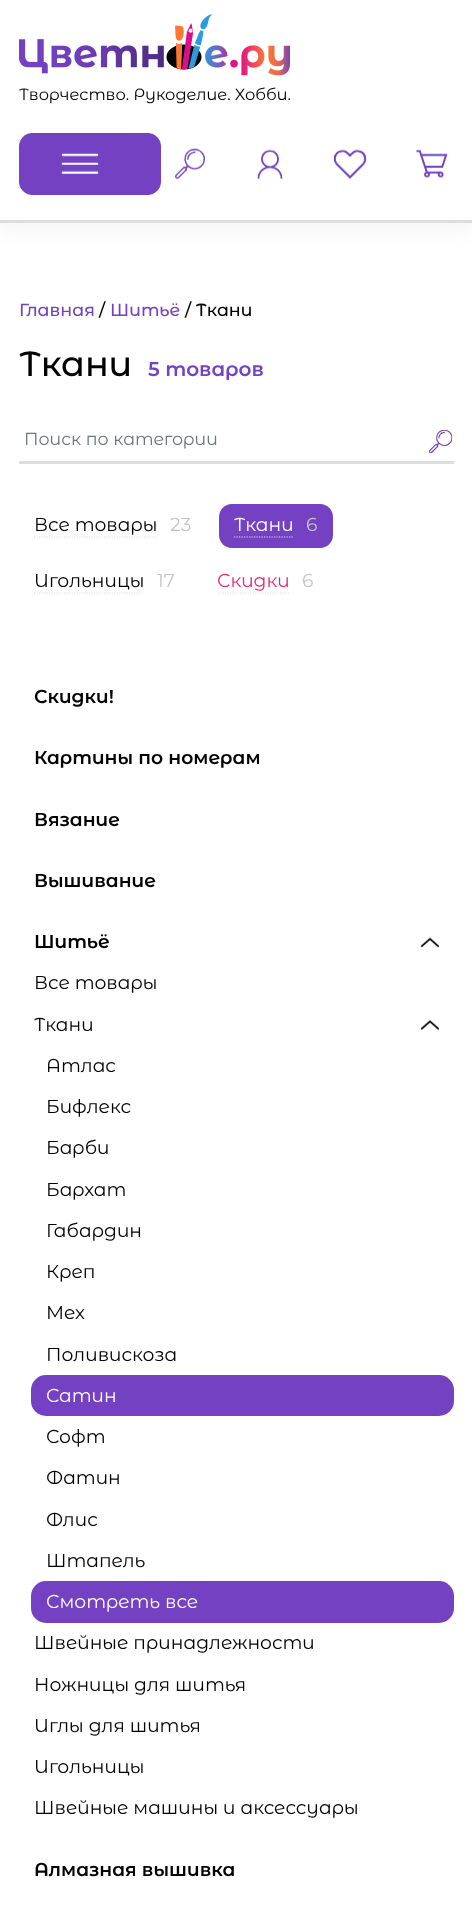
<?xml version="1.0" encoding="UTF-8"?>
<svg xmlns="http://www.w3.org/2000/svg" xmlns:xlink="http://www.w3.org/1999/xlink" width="472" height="1920">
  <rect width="100%" height="100%" fill="#ffffff" />
  <rect y="5" width="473" height="223" fill="#a6a6a6" fill-opacity="0.15" filter="blur(12px)" />
  <rect width="472" height="220" fill="#ffffff" />
  <rect y="220" width="472" height="3" fill="#dddddd" />
  <image x="19" y="14" width="271" height="62" xlink:href="image1.png" />
  <rect x="19.5" y="133.5" width="141" height="61" rx="12.5" fill="#7341c2" stroke="#7341c2" />
  <image x="61" y="153" width="38" height="21" xlink:href="image2.png" />
  <image x="175" y="148" width="30" height="31" xlink:href="image3.png" />
  <image x="257" y="149" width="26" height="30" xlink:href="image4.png" />
  <image x="333" y="149" width="34" height="30" xlink:href="image5.png" />
  <image x="416" y="149" width="32" height="29" xlink:href="image6.png" />
  <rect x="19" y="461" width="435" height="3" fill="#dddddd" />
  <image x="429" y="430" width="24" height="24" xlink:href="image7.png" />
  <path d="M 34 537 h 123.5" fill="none" stroke="#dddddd" stroke-width="1.2" stroke-dasharray="1.25 1.25" />
  <rect x="219" y="504" width="114" height="44" rx="13" fill="#7341c2" />
  <path d="M 234 537 h 60" fill="none" stroke="#dddddd" stroke-width="1.2" stroke-dasharray="1.25 1.25" />
  <path d="M 34 593 h 110" fill="none" stroke="#dddddd" stroke-width="1.2" stroke-dasharray="1.25 1.25" />
  <path d="M 217.5 593 h 72.5" fill="none" stroke="#dddddd" stroke-width="1.2" stroke-dasharray="1.25 1.25" />
  <image x="420" y="937" width="19" height="11" xlink:href="image8.png" />
  <image x="420" y="1019" width="19" height="11" xlink:href="image9.png" />
  <rect x="31" y="1375" width="423" height="41" rx="15" fill="#7341c2" />
  <rect x="31" y="1581" width="423" height="42" rx="15" fill="#7341c2" />
  <text x="19" y="100" style="font-family: Montserrat Alternates; font-size: 16.25px; fill: #000000">Творчество. Рукоделие. Хобби.</text>
  <text x="19" y="316" style="font-family: Montserrat Alternates; font-size: 17.5px; font-weight: 500; fill: #7341c2">Главная</text>
  <text x="99" y="316" style="font-family: Montserrat Alternates; font-size: 17.5px; font-weight: 500; fill: #000000">/</text>
  <text x="110" y="316" style="font-family: Montserrat Alternates; font-size: 17.5px; font-weight: 500; fill: #7341c2">Шитьё</text>
  <text x="185" y="316" style="font-family: Montserrat Alternates; font-size: 17.5px; font-weight: 500; fill: #000000">/ Ткани</text>
  <text x="19" y="376" style="font-family: Montserrat Alternates; font-size: 35px; font-weight: 500; fill: #000000">Ткани</text>
  <text x="148" y="376" style="font-family: Montserrat Alternates; font-size: 20px; font-weight: 600; fill: #7341c2">5 товаров</text>
  <text x="24" y="445" style="font-family: Montserrat Alternates; font-size: 17.5px; fill: #6c757d">Поиск по категории</text>
  <text x="34" y="531" style="font-family: Montserrat Alternates; font-size: 18.75px; fill: #000000">Все товары</text>
  <text x="170" y="531" style="font-family: Montserrat Alternates; font-size: 18.75px; fill: #c4c4c4">23</text>
  <text x="234" y="531" style="font-family: Montserrat Alternates; font-size: 18.75px; fill: #ffffff">Ткани</text>
  <text x="306" y="531" style="font-family: Montserrat Alternates; font-size: 18.75px; fill: #c4c4c4">6</text>
  <text x="34" y="587" style="font-family: Montserrat Alternates; font-size: 18.75px; fill: #000000">Игольницы</text>
  <text x="157" y="587" style="font-family: Montserrat Alternates; font-size: 18.75px; fill: #c4c4c4">17</text>
  <text x="217" y="587" style="font-family: Montserrat Alternates; font-size: 18.75px; fill: #e62877">Скидки</text>
  <text x="302" y="587" style="font-family: Montserrat Alternates; font-size: 18.75px; fill: #c4c4c4">6</text>
  <text x="34" y="703" style="font-family: Montserrat Alternates; font-size: 18.75px; font-weight: 600; fill: #000000">Скидки!</text>
  <text x="34" y="764" style="font-family: Montserrat Alternates; font-size: 18.75px; font-weight: 600; fill: #000000">Картины по номерам</text>
  <text x="34" y="826" style="font-family: Montserrat Alternates; font-size: 18.75px; font-weight: 600; fill: #000000">Вязание</text>
  <text x="34" y="887" style="font-family: Montserrat Alternates; font-size: 18.75px; font-weight: 600; fill: #000000">Вышивание</text>
  <text x="34" y="948" style="font-family: Montserrat Alternates; font-size: 18.75px; font-weight: 600; fill: #000000">Шитьё</text>
  <text x="34" y="989" style="font-family: Montserrat Alternates; font-size: 18.75px; fill: #000000">Все товары</text>
  <text x="34" y="1031" style="font-family: Montserrat Alternates; font-size: 18.75px; fill: #000000">Ткани</text>
  <text x="46" y="1072" style="font-family: Montserrat Alternates; font-size: 18.75px; fill: #000000">Атлас</text>
  <text x="46" y="1113" style="font-family: Montserrat Alternates; font-size: 18.75px; fill: #000000">Бифлекс</text>
  <text x="46" y="1154" style="font-family: Montserrat Alternates; font-size: 18.75px; fill: #000000">Барби</text>
  <text x="46" y="1196" style="font-family: Montserrat Alternates; font-size: 18.75px; fill: #000000">Бархат</text>
  <text x="46" y="1237" style="font-family: Montserrat Alternates; font-size: 18.75px; fill: #000000">Габардин</text>
  <text x="46" y="1278" style="font-family: Montserrat Alternates; font-size: 18.75px; fill: #000000">Креп</text>
  <text x="46" y="1319" style="font-family: Montserrat Alternates; font-size: 18.75px; fill: #000000">Мех</text>
  <text x="46" y="1361" style="font-family: Montserrat Alternates; font-size: 18.75px; fill: #000000">Поливискоза</text>
  <text x="46" y="1402" style="font-family: Montserrat Alternates; font-size: 18.75px; fill: #ffffff">Сатин</text>
  <text x="46" y="1443" style="font-family: Montserrat Alternates; font-size: 18.75px; fill: #000000">Софт</text>
  <text x="46" y="1484" style="font-family: Montserrat Alternates; font-size: 18.75px; fill: #000000">Фатин</text>
  <text x="46" y="1526" style="font-family: Montserrat Alternates; font-size: 18.75px; fill: #000000">Флис</text>
  <text x="46" y="1567" style="font-family: Montserrat Alternates; font-size: 18.75px; fill: #000000">Штапель</text>
  <text x="46" y="1608" style="font-family: Montserrat Alternates; font-size: 18.75px; fill: #ffffff">Смотреть все</text>
  <text x="34" y="1649" style="font-family: Montserrat Alternates; font-size: 18.75px; fill: #000000">Швейные принадлежности</text>
  <text x="34" y="1691" style="font-family: Montserrat Alternates; font-size: 18.75px; fill: #000000">Ножницы для шитья</text>
  <text x="34" y="1732" style="font-family: Montserrat Alternates; font-size: 18.75px; fill: #000000">Иглы для шитья</text>
  <text x="34" y="1773" style="font-family: Montserrat Alternates; font-size: 18.75px; fill: #000000">Игольницы</text>
  <text x="34" y="1814" style="font-family: Montserrat Alternates; font-size: 18.75px; fill: #000000">Швейные машины и аксессуары</text>
  <text x="34" y="1876" style="font-family: Montserrat Alternates; font-size: 18.75px; font-weight: 600; fill: #000000">Алмазная вышивка</text>
</svg>
